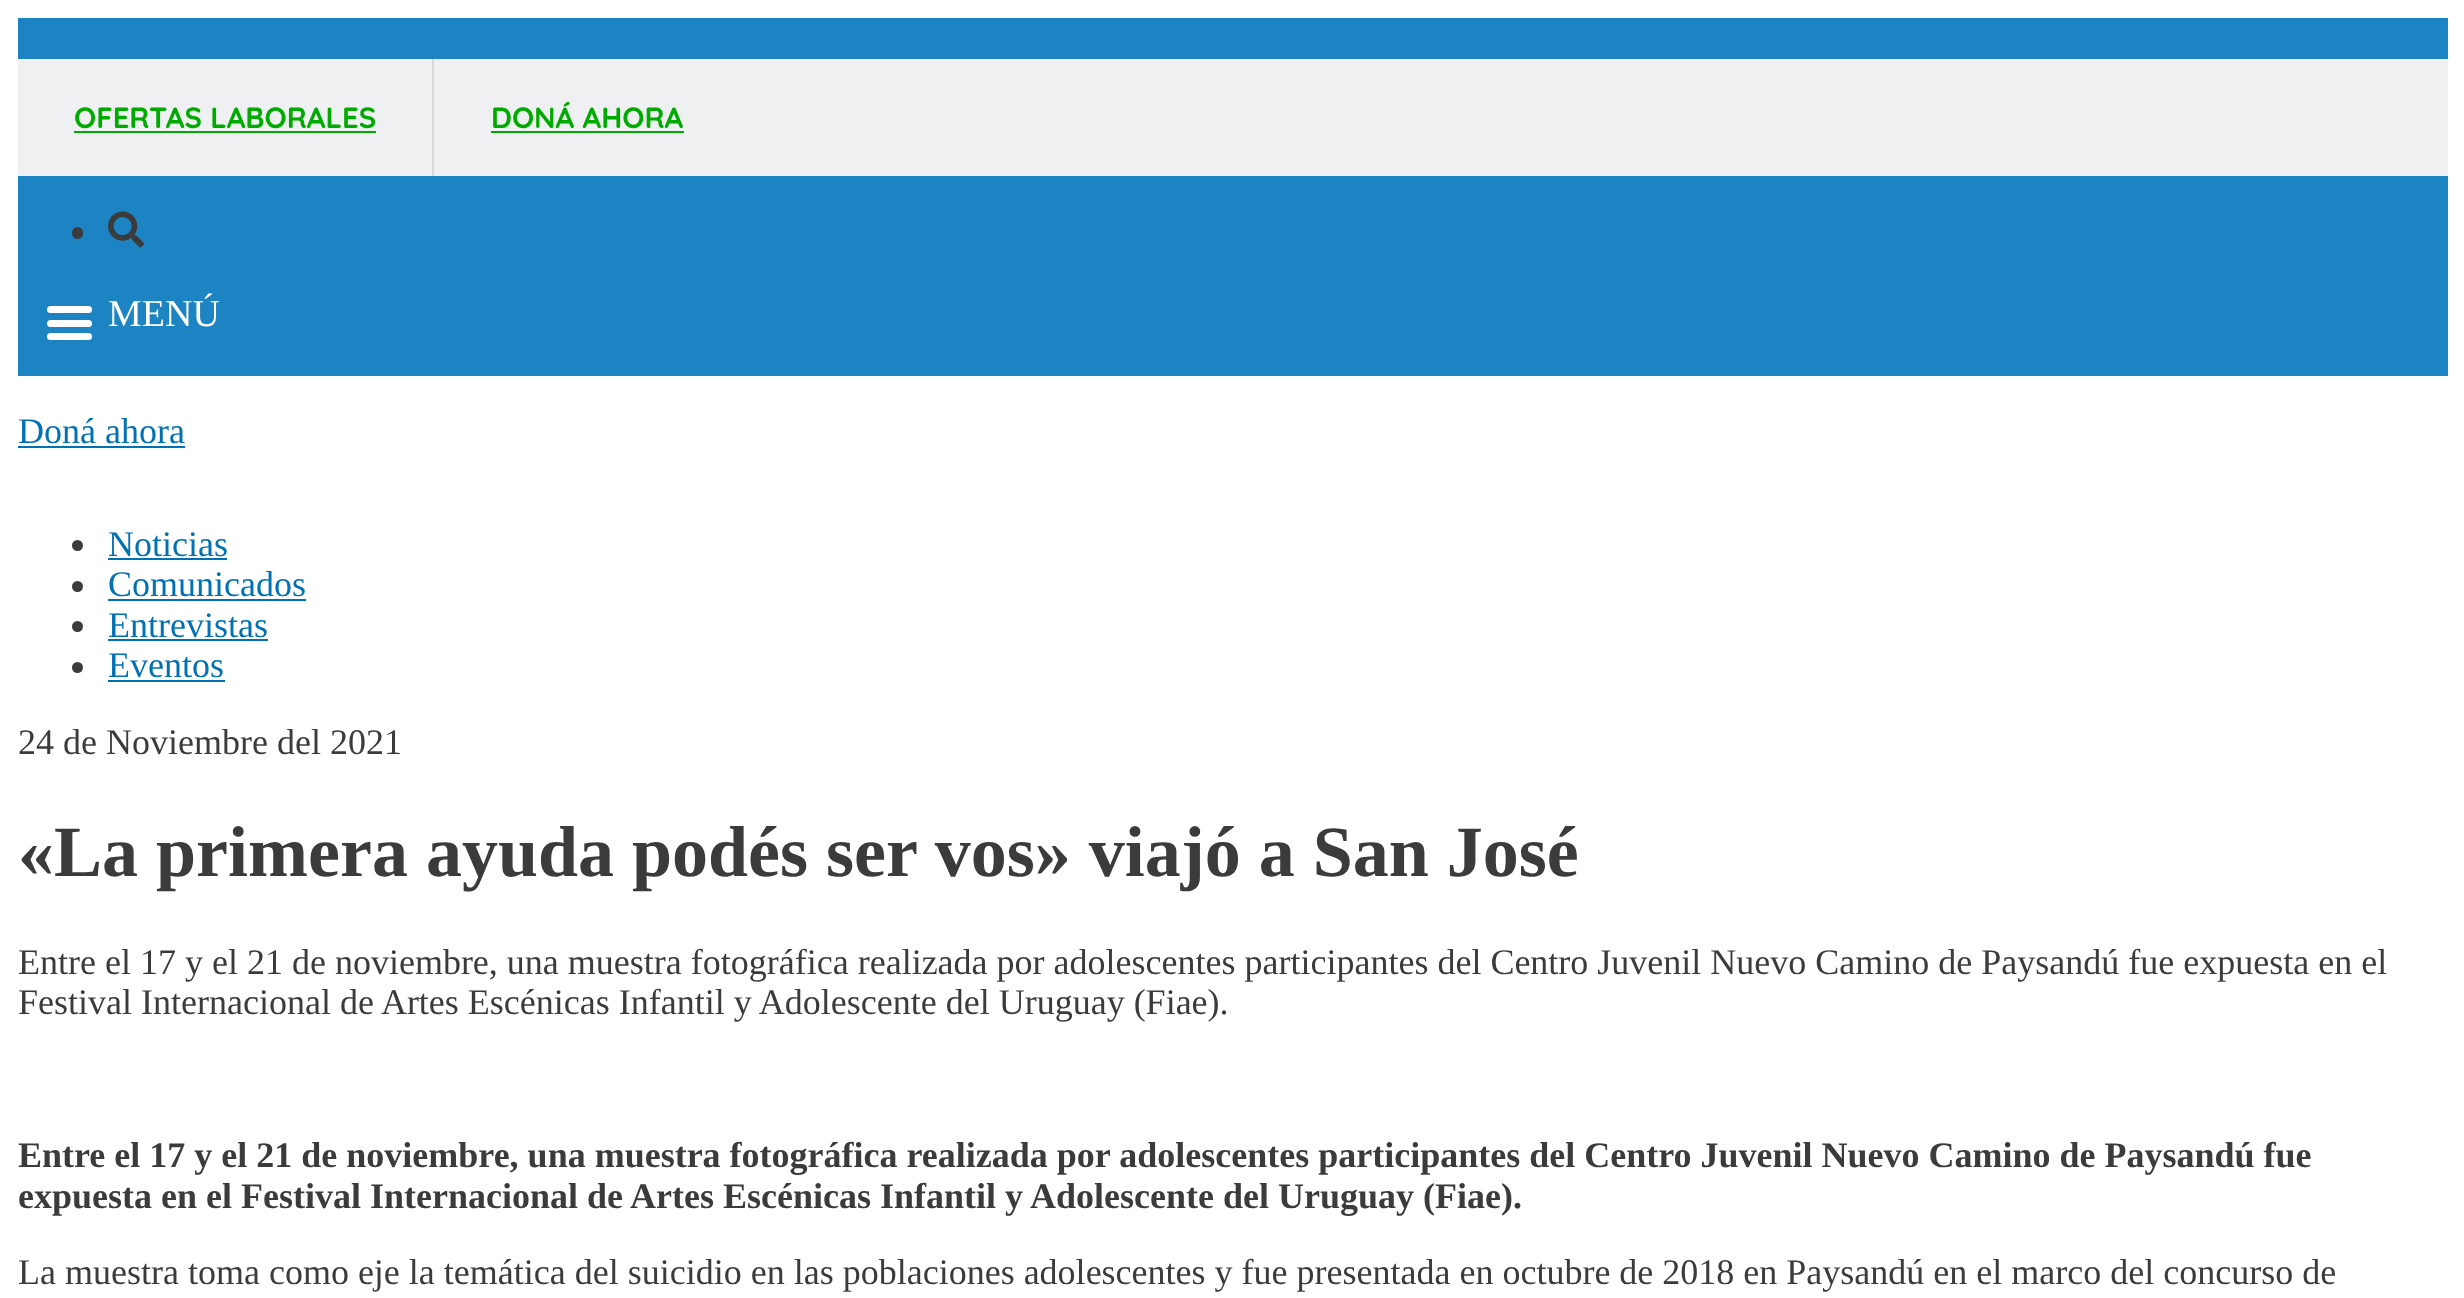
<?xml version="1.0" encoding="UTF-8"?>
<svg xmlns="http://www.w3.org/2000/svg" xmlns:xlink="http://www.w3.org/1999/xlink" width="2464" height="1298">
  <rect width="100%" height="100%" fill="#ffffff" />
  <rect x="18" y="18" width="2430" height="358" fill="#1d84c3" />
  <rect x="18" y="59" width="2430" height="117" fill="#eff0f1" />
  <rect x="74" y="131" width="302" height="2" fill="#00aa00" />
  <rect x="432" y="59" width="2" height="117" fill="#d7d8d9" />
  <rect x="491" y="131" width="193" height="2" fill="#00aa00" />
  <rect x="72" y="227" width="11" height="12" rx="5.5" fill="#3b3b3b" />
  <image x="108" y="211" width="36" height="37" xlink:href="image1.png" />
  <rect x="47" y="306" width="45" height="7" rx="3.5" fill="#ffffff" />
  <rect x="47" y="320" width="45" height="7" rx="3.5" fill="#ffffff" />
  <rect x="47" y="333" width="45" height="7" rx="3.5" fill="#ffffff" />
  <rect x="18" y="446" width="167" height="2" fill="#0071b3" />
  <circle cx="77.5" cy="545.5" r="5.5" fill="#3b3b3b" />
  <rect x="108" y="558" width="119" height="2" fill="#0071b3" />
  <circle cx="77.5" cy="586.5" r="5.5" fill="#3b3b3b" />
  <rect x="108" y="599" width="198" height="2" fill="#0071b3" />
  <circle cx="77.5" cy="626.5" r="5.5" fill="#3b3b3b" />
  <rect x="108" y="639" width="160" height="2" fill="#0071b3" />
  <circle cx="77.5" cy="667.5" r="5.5" fill="#3b3b3b" />
  <rect x="108" y="680" width="117" height="2" fill="#0071b3" />
  <text x="74" y="128" style="font-family: Quicksand; font-size: 29.25px; font-weight: bold; fill: #00aa00">OFERTAS LABORALES</text>
  <text x="491" y="128" style="font-family: Quicksand; font-size: 29.25px; font-weight: bold; fill: #00aa00">DONÁ AHORA</text>
  <text x="108" y="326" style="font-family: Liberation Serif; font-size: 38px; fill: #ffffff">MENÚ</text>
  <text x="18" y="443" style="font-family: Liberation Serif; font-size: 36px; fill: #0071b3">Doná ahora</text>
  <text x="108" y="556" style="font-family: Liberation Serif; font-size: 36px; fill: #0071b3">Noticias</text>
  <text x="108" y="596" style="font-family: Liberation Serif; font-size: 36px; fill: #0071b3">Comunicados</text>
  <text x="108" y="637" style="font-family: Liberation Serif; font-size: 36px; fill: #0071b3">Entrevistas</text>
  <text x="108" y="677" style="font-family: Liberation Serif; font-size: 36px; fill: #0071b3">Eventos</text>
  <text x="18" y="754" style="font-family: Liberation Serif; font-size: 36px; fill: #3b3b3b">24 de Noviembre del 2021</text>
  <text x="18" y="876" style="font-family: Liberation Serif; font-size: 72px; font-weight: bold; fill: #3b3b3b">«La primera ayuda podés ser vos» viajó a San José</text>
  <text x="18" y="974" style="font-family: Liberation Serif; font-size: 36px; fill: #3b3b3b">Entre el 17 y el 21 de noviembre, una muestra fotográfica realizada por adolescentes participantes del Centro Juvenil Nuevo Camino de Paysandú fue expuesta en el</text>
  <text x="18" y="1014" style="font-family: Liberation Serif; font-size: 36px; fill: #3b3b3b">Festival Internacional de Artes Escénicas Infantil y Adolescente del Uruguay (Fiae).</text>
  <text x="18" y="1167" style="font-family: Liberation Serif; font-size: 36px; font-weight: bold; fill: #3b3b3b">Entre el 17 y el 21 de noviembre, una muestra fotográfica realizada por adolescentes participantes del Centro Juvenil Nuevo Camino de Paysandú fue</text>
  <text x="18" y="1208" style="font-family: Liberation Serif; font-size: 36px; font-weight: bold; fill: #3b3b3b">expuesta en el Festival Internacional de Artes Escénicas Infantil y Adolescente del Uruguay (Fiae).</text>
  <text x="18" y="1284" style="font-family: Liberation Serif; font-size: 36px; fill: #3b3b3b">La muestra toma como eje la temática del suicidio en las poblaciones adolescentes y fue presentada en octubre de 2018 en Paysandú en el marco del concurso de</text>
</svg>
